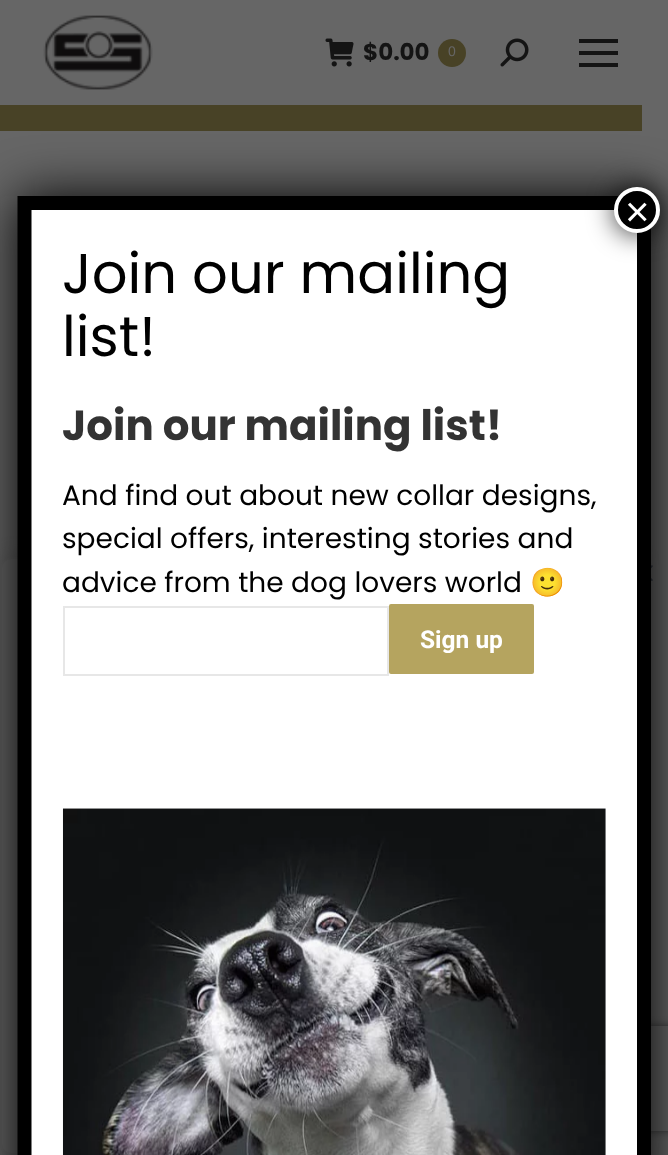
<?xml version="1.0" encoding="UTF-8"?>
<svg xmlns="http://www.w3.org/2000/svg" xmlns:xlink="http://www.w3.org/1999/xlink" width="668" height="1155">
  <defs>
    <clipPath id="clip1"><path d="M 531 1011 h 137 v 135 h -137 z m 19 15 h 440 c 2 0 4 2 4 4 v 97 c 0 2 -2 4 -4 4 h -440 c -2 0 -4 -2 -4 -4 v -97 c 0 -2 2 -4 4 -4 z" clip-rule="evenodd" /></clipPath>
  </defs>
  <rect width="100%" height="100%" fill="#666666" />
  <image x="43" y="15" width="110" height="75" xlink:href="image1.png" />
  <image x="325" y="38" width="29" height="29" xlink:href="image2.png" />
  <circle cx="452" cy="53" r="14" fill="#484226" />
  <image x="500" y="38" width="29" height="29" xlink:href="image3.png" />
  <rect x="579" y="39" width="39" height="4" fill="#141414" />
  <rect x="579" y="51" width="39" height="4" fill="#141414" />
  <rect x="579" y="63" width="39" height="4" fill="#141414" />
  <rect y="105" width="642" height="26" fill="#484226" />
  <rect y="555" width="642" height="598" rx="11" fill="#454444" fill-opacity="0.3" filter="blur(9px)" />
  <g clip-path="url(#clip1)">
    <rect x="546" y="1026" width="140" height="105" rx="4" fill="#333333" filter="blur(4.5px)" />
  </g>
  <rect x="1" y="558" width="640" height="596" rx="10" fill="#666666" stroke="#626262" stroke-width="2" />
  <image x="651" y="565" width="2" height="16" xlink:href="image5.png" />
  <rect x="18" y="196" width="633" height="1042" rx="5" fill="#020202" filter="blur(26px)" />
  <rect x="31" y="210" width="606" height="945" fill="#ffffff" />
  <path d="M 24.5 203 h 619.5 v 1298.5 h -619.5 z" fill="none" stroke="#000000" stroke-width="14" />
  <rect x="613" y="186" width="49" height="49" rx="24.5" fill="#020202" fill-opacity="0.75" filter="blur(13px)" />
  <circle cx="637" cy="210" r="21" fill="#000000" stroke="#ffffff" stroke-width="4" />
  <rect x="64" y="607" width="324" height="68" fill="none" stroke="#e7e7e7" stroke-width="2" />
  <rect x="389" y="604" width="145" height="70" rx="2" fill="#b5a45f" />
  <image x="62" y="808" width="544" height="347" xlink:href="image4.png" />
  <text x="363" y="60" style="font-family: Poppins; font-size: 23px; font-weight: bold; fill: #141414">$0.00</text>
  <text x="448" y="56" style="font-family: Liberation Sans; font-size: 14px; fill: #666666">0</text>
  <text x="625" y="226" style="font-family: Liberation Sans; font-size: 42px; fill: #ffffff">×</text>
  <text x="62" y="293" style="font-family: Poppins; font-size: 56px; fill: #000000">Join our mailing</text>
  <text x="62" y="356" style="font-family: Poppins; font-size: 56px; fill: #000000">list!</text>
  <text x="62" y="440" style="font-family: Poppins; font-size: 42px; font-weight: bold; fill: #333333">Join our mailing list!</text>
  <text x="62" y="505" style="font-family: Poppins; font-size: 28px; fill: #000000">And find out about new collar designs,</text>
  <text x="62" y="548" style="font-family: Poppins; font-size: 28px; fill: #000000">special offers, interesting stories and</text>
  <text x="62" y="592" style="font-family: Poppins; font-size: 28px; fill: #000000">advice from the dog lovers world</text>
  <text x="530" y="592" style="font-family: Noto Color Emoji; font-size: 28px; fill: #000000">🙂</text>
  <text x="420" y="648" style="font-family: Roboto; font-size: 24.5px; font-weight: bold; fill: #ffffff">Sign up</text>
</svg>
